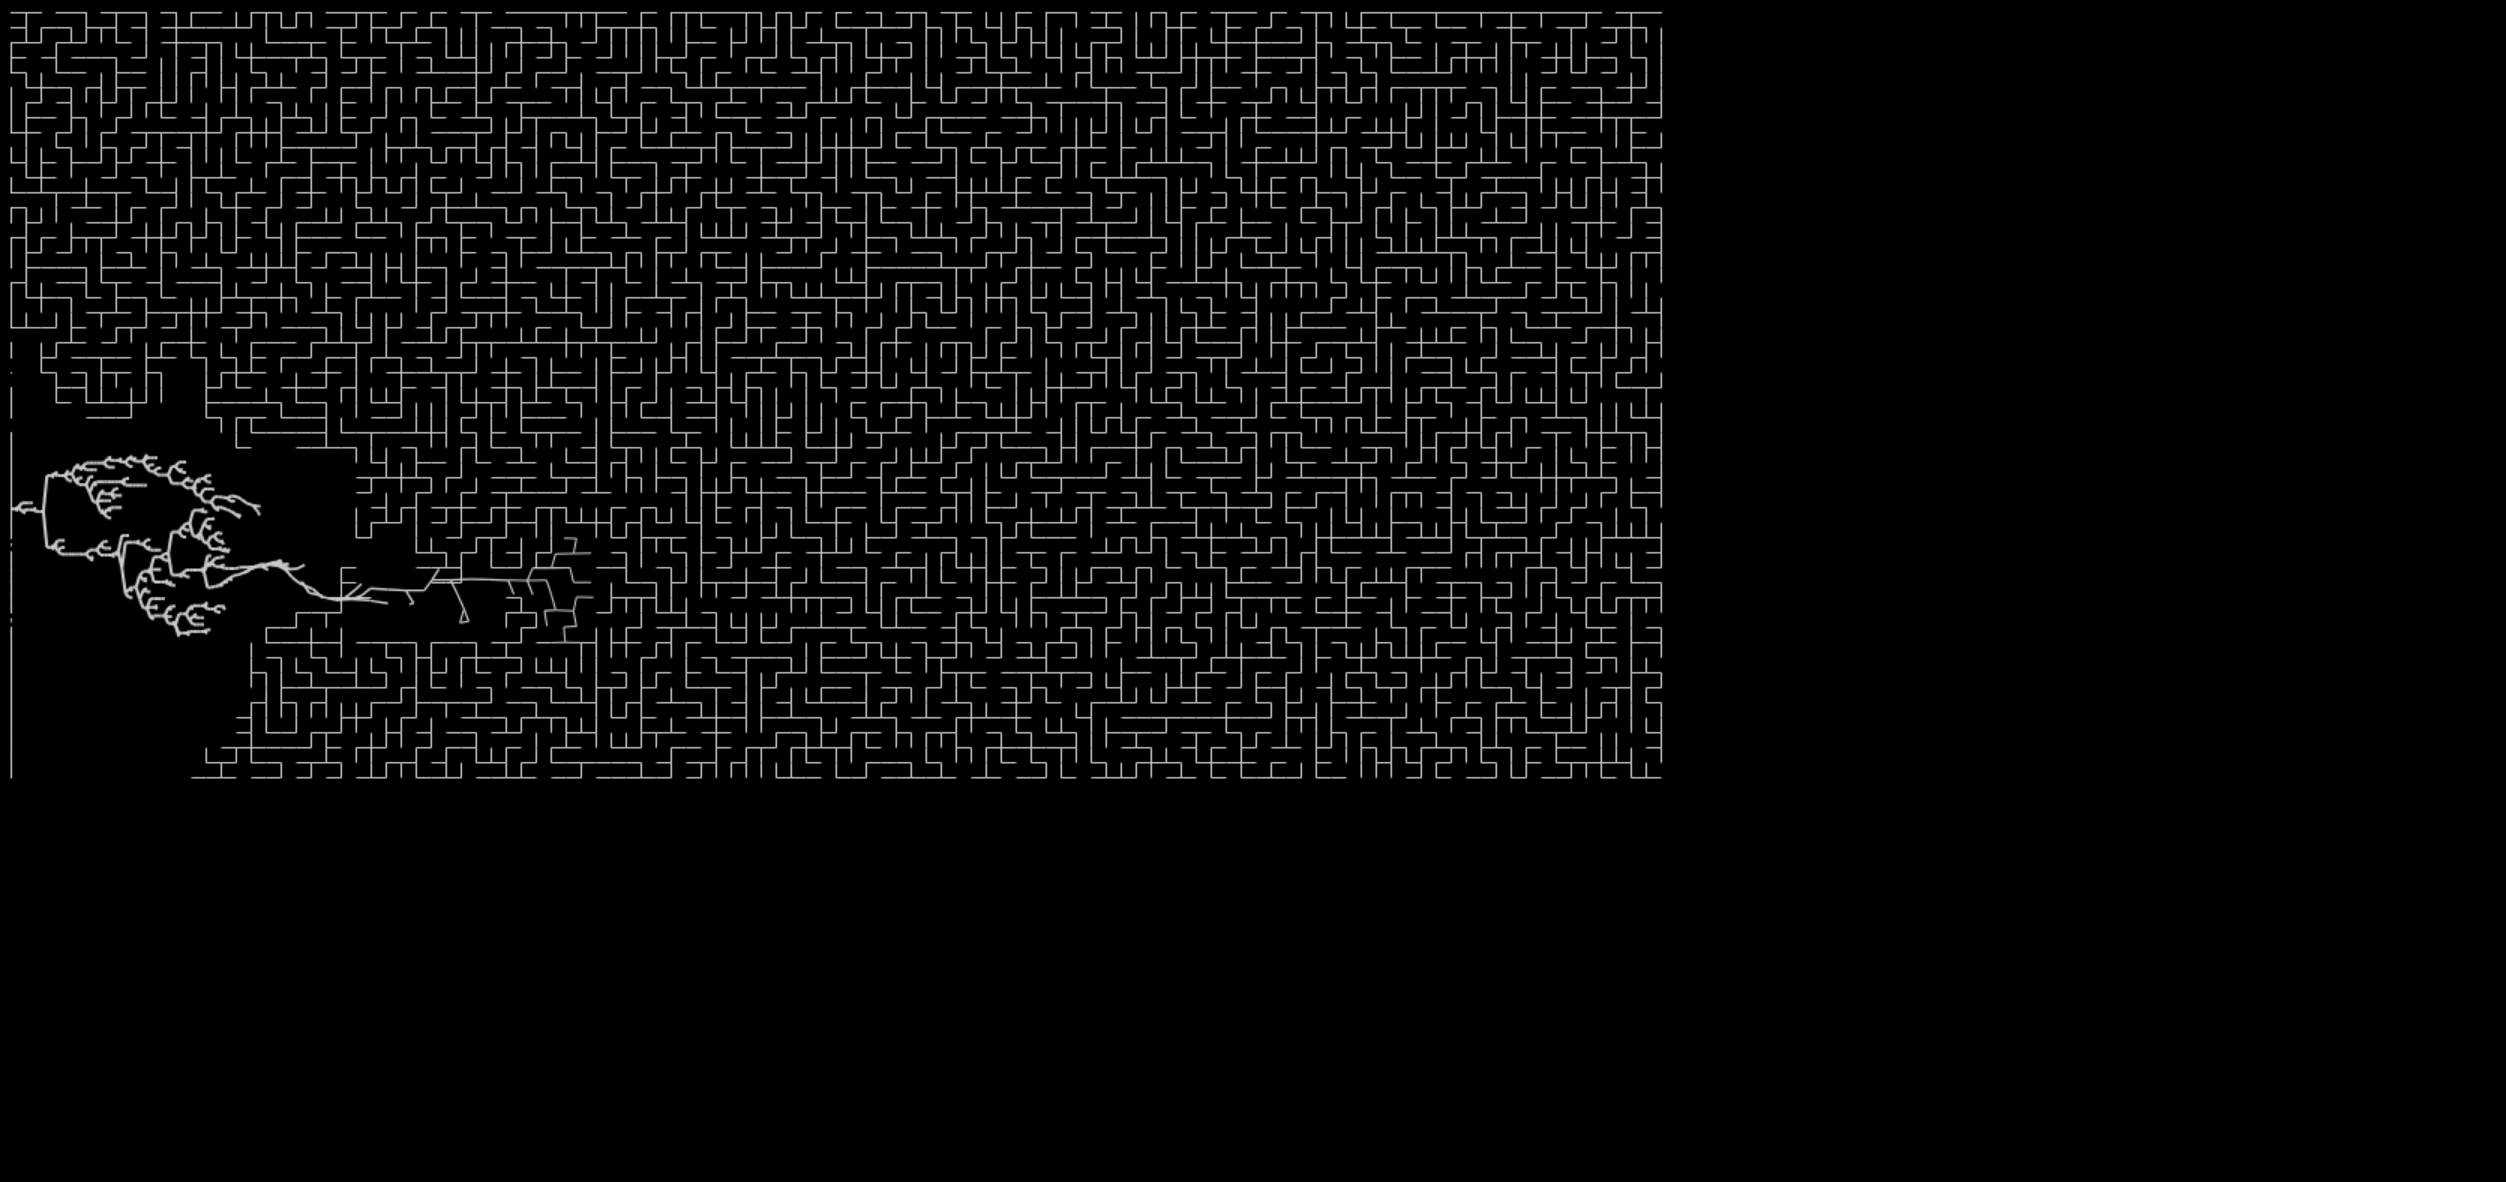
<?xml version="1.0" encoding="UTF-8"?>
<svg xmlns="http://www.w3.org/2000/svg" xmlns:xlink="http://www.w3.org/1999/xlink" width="2506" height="1182">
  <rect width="100%" height="100%" fill="#000000" />
  <image x="9" y="11" width="1654" height="768" xlink:href="image1.png" />
</svg>
